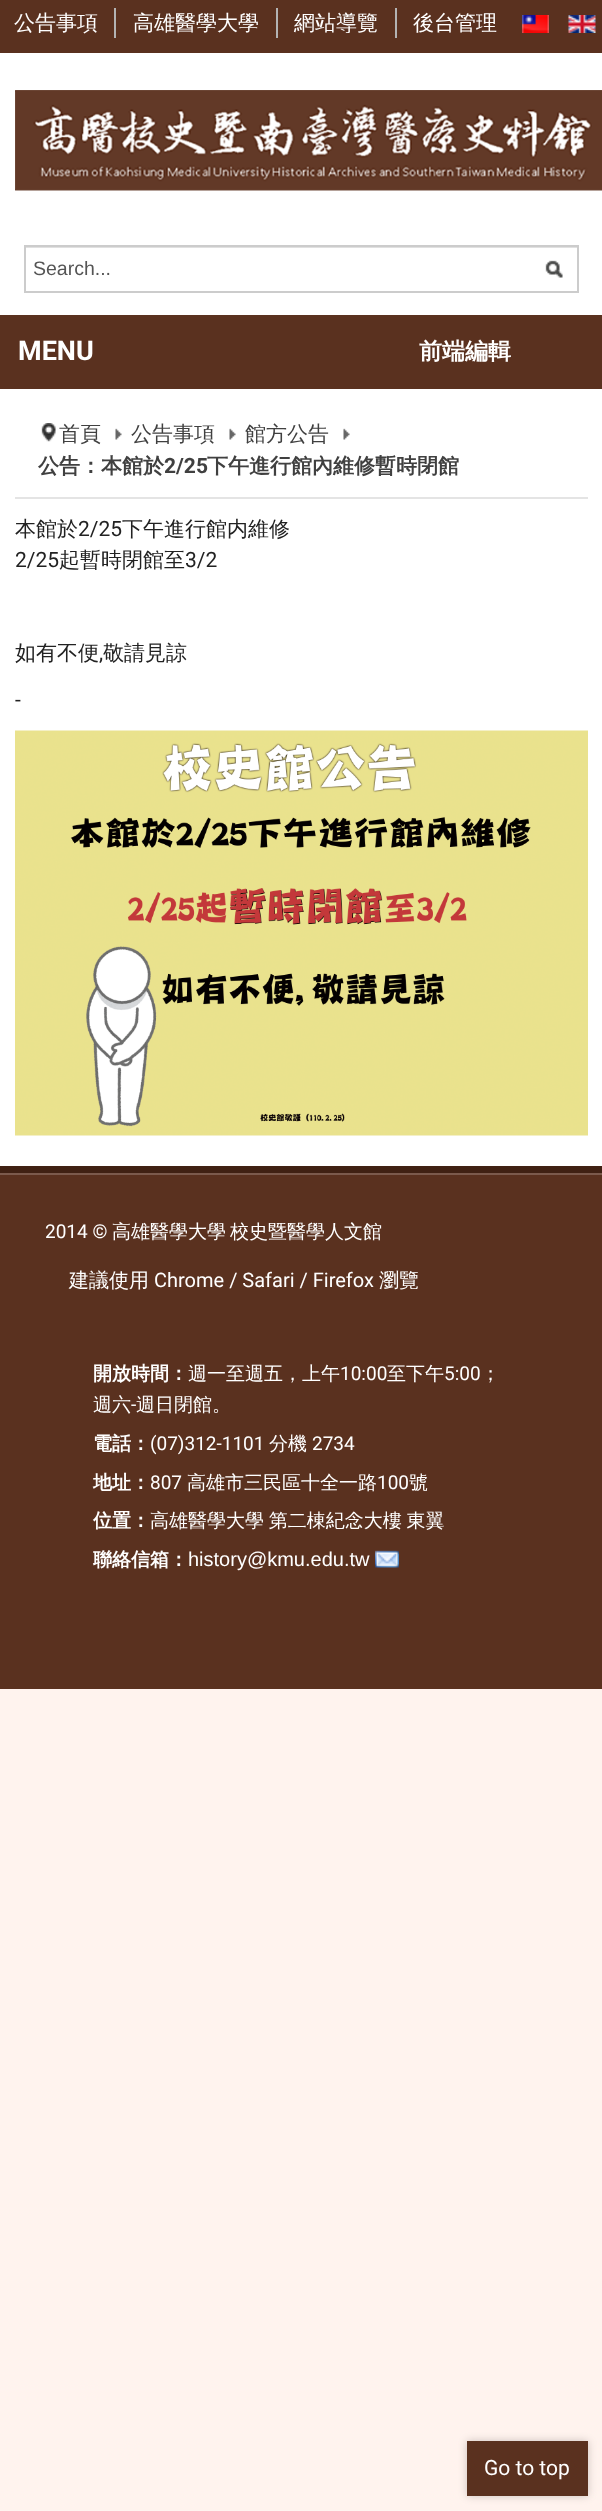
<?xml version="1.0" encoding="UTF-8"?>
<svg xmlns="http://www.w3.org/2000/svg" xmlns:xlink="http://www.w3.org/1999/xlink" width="602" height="2511">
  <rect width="100%" height="100%" fill="#fff3ee" />
  <rect width="602" height="53" fill="#5a311f" />
  <rect x="114" y="8" width="2" height="30" fill="#b3b3b3" />
  <rect x="276" y="8" width="2" height="30" fill="#b3b3b3" />
  <rect x="395" y="8" width="2" height="30" fill="#b3b3b3" />
  <image x="522" y="15" width="27" height="18" xlink:href="image1.png" />
  <image x="568" y="15" width="28" height="18" xlink:href="image2.png" />
  <rect y="53" width="602" height="1113" fill="#ffffff" />
  <image x="15" y="90" width="587" height="101" xlink:href="image3.png" />
  <image x="545" y="260" width="18" height="18" xlink:href="image4.png" />
  <rect x="26" y="247" width="552" height="1" fill="#e0e0e0" />
  <rect x="25" y="246" width="553" height="46" fill="none" stroke="#cccccc" stroke-width="2" />
  <rect y="315" width="602" height="74" fill="#5a311f" />
  <rect x="15" y="497" width="573" height="2" fill="#e4e4e4" />
  <image x="41" y="423" width="15" height="19" xlink:href="image5.png" />
  <image x="115" y="428" width="7" height="12" xlink:href="image6.png" />
  <image x="229" y="428" width="7" height="12" xlink:href="image6.png" />
  <image x="343" y="428" width="7" height="12" xlink:href="image6.png" />
  <image x="15" y="730" width="573" height="406" xlink:href="image7.png" />
  <rect y="1175" width="602" height="514" fill="#5a311f" />
  <rect y="1173" width="602" height="2" fill="#7b5a4c" />
  <rect y="1166" width="602" height="7" fill="#402113" />
  <image x="375" y="1550" width="24" height="18" xlink:href="image8.png" />
  <rect x="467" y="2441" width="121" height="55" fill="#000000" fill-opacity="0.2" filter="blur(4px)" />
  <rect x="467" y="2441" width="121" height="55" fill="#5a311f" />
  <text x="14" y="30" style="font-family: WenQuanYi Zen Hei; font-size: 21px; font-weight: 500; fill: #ffffff">公告事項</text>
  <text x="133" y="30" style="font-family: WenQuanYi Zen Hei; font-size: 21px; font-weight: 500; fill: #ffffff">高雄醫學大學</text>
  <text x="294" y="30" style="font-family: WenQuanYi Zen Hei; font-size: 21px; font-weight: 500; fill: #ffffff">網站導覽</text>
  <text x="413" y="30" style="font-family: WenQuanYi Zen Hei; font-size: 21px; font-weight: 500; fill: #ffffff">後台管理</text>
  <text x="33" y="275" style="font-family: Liberation Sans; font-size: 19.5px; fill: #555555">Search...</text>
  <text x="18" y="360" style="font-family: Roboto; font-size: 27px; font-weight: bold; fill: #ffffff">MENU</text>
  <text x="419" y="359" style="font-family: WenQuanYi Zen Hei; font-size: 23px; font-weight: bold; fill: #ffffff">前端編輯</text>
  <text x="59" y="441" style="font-family: WenQuanYi Zen Hei; font-size: 21px; font-weight: 500; fill: #404040">首頁</text>
  <text x="131" y="441" style="font-family: WenQuanYi Zen Hei; font-size: 21px; font-weight: 500; fill: #404040">公告事項</text>
  <text x="245" y="441" style="font-family: WenQuanYi Zen Hei; font-size: 21px; font-weight: 500; fill: #404040">館方公告</text>
  <text x="38" y="473" style="font-family: WenQuanYi Zen Hei; font-size: 21px; font-weight: bold; fill: #404040">公告：本館於</text>
  <text x="164" y="473" style="font-family: Roboto; font-size: 21px; font-weight: bold; fill: #404040">2/25</text>
  <text x="207" y="473" style="font-family: WenQuanYi Zen Hei; font-size: 21px; font-weight: bold; fill: #404040">下午進行館內維修暫時閉館</text>
  <text x="15" y="536" style="font-family: WenQuanYi Zen Hei; font-size: 21px; font-weight: 500; fill: #222222">本館於</text>
  <text x="78" y="536" style="font-family: Roboto; font-size: 21px; fill: #222222">2/25</text>
  <text x="122" y="536" style="font-family: WenQuanYi Zen Hei; font-size: 21px; font-weight: 500; fill: #222222">下午進行館内維修</text>
  <text x="15" y="567" style="font-family: Roboto; font-size: 21px; fill: #222222">2/25</text>
  <text x="59" y="567" style="font-family: WenQuanYi Zen Hei; font-size: 21px; font-weight: 500; fill: #222222">起暫時閉館至</text>
  <text x="185" y="567" style="font-family: Roboto; font-size: 21px; fill: #222222">3/2</text>
  <text x="15" y="660" style="font-family: WenQuanYi Zen Hei; font-size: 21px; font-weight: 500; fill: #222222">如有不便</text>
  <text x="99" y="660" style="font-family: Roboto; font-size: 21px; fill: #222222">,</text>
  <text x="103" y="660" style="font-family: WenQuanYi Zen Hei; font-size: 21px; font-weight: 500; fill: #222222">敬請見諒</text>
  <text x="15" y="707" style="font-family: Roboto; font-size: 21px; fill: #222222">-</text>
  <text x="45" y="1238" style="font-family: Roboto; font-size: 19px; fill: #ffffff">2014 ©</text>
  <text x="112" y="1238" style="font-family: WenQuanYi Zen Hei; font-size: 19px; font-weight: 500; fill: #ffffff">高雄醫學大學</text>
  <text x="230" y="1238" style="font-family: WenQuanYi Zen Hei; font-size: 19px; font-weight: 500; fill: #ffffff">校史暨醫學人文館</text>
  <text x="69" y="1287" style="font-family: WenQuanYi Zen Hei; font-size: 20px; font-weight: 500; fill: #ffffff">建議使用</text>
  <text x="154" y="1287" style="font-family: Roboto; font-size: 20px; fill: #ffffff">Chrome / Safari / Firefox</text>
  <text x="379" y="1287" style="font-family: WenQuanYi Zen Hei; font-size: 20px; font-weight: 500; fill: #ffffff">瀏覽</text>
  <text x="93" y="1380" style="font-family: WenQuanYi Zen Hei; font-size: 19px; font-weight: bold; fill: #ffffff">開放時間：</text>
  <text x="188" y="1380" style="font-family: WenQuanYi Zen Hei; font-size: 19px; font-weight: 500; fill: #ffffff">週一至週五，上午</text>
  <text x="340" y="1380" style="font-family: Roboto; font-size: 19px; fill: #ffffff">10:00</text>
  <text x="387" y="1380" style="font-family: WenQuanYi Zen Hei; font-size: 19px; font-weight: 500; fill: #ffffff">至下午</text>
  <text x="444" y="1380" style="font-family: Roboto; font-size: 19px; fill: #ffffff">5:00</text>
  <text x="481" y="1380" style="font-family: WenQuanYi Zen Hei; font-size: 19px; font-weight: 500; fill: #ffffff">；</text>
  <text x="93" y="1411" style="font-family: WenQuanYi Zen Hei; font-size: 19px; font-weight: 500; fill: #ffffff">週六</text>
  <text x="131" y="1411" style="font-family: Roboto; font-size: 19px; fill: #ffffff">-</text>
  <text x="136" y="1411" style="font-family: WenQuanYi Zen Hei; font-size: 19px; font-weight: 500; fill: #ffffff">週日閉館。</text>
  <text x="93" y="1450" style="font-family: WenQuanYi Zen Hei; font-size: 19px; font-weight: bold; fill: #ffffff">電話：</text>
  <text x="150" y="1450" style="font-family: Roboto; font-size: 19px; fill: #ffffff">(07)312-1101</text>
  <text x="269" y="1450" style="font-family: WenQuanYi Zen Hei; font-size: 19px; font-weight: 500; fill: #ffffff">分機</text>
  <text x="312" y="1450" style="font-family: Roboto; font-size: 19px; fill: #ffffff">2734</text>
  <text x="93" y="1489" style="font-family: WenQuanYi Zen Hei; font-size: 19px; font-weight: bold; fill: #ffffff">地址：</text>
  <text x="150" y="1489" style="font-family: Roboto; font-size: 19px; fill: #ffffff">807</text>
  <text x="187" y="1489" style="font-family: WenQuanYi Zen Hei; font-size: 19px; font-weight: 500; fill: #ffffff">高雄市三民區十全一路</text>
  <text x="377" y="1489" style="font-family: Roboto; font-size: 19px; fill: #ffffff">100</text>
  <text x="409" y="1489" style="font-family: WenQuanYi Zen Hei; font-size: 19px; font-weight: 500; fill: #ffffff">號</text>
  <text x="93" y="1527" style="font-family: WenQuanYi Zen Hei; font-size: 19px; font-weight: bold; fill: #ffffff">位置：</text>
  <text x="150" y="1527" word-spacing="-1" style="font-family: WenQuanYi Zen Hei; font-size: 19px; font-weight: 500; fill: #ffffff">高雄醫學大學 第二棟紀念大樓 東翼</text>
  <text x="93" y="1566" style="font-family: WenQuanYi Zen Hei; font-size: 19px; font-weight: bold; fill: #ffffff">聯絡信箱：</text>
  <text x="188" y="1566" style="font-family: Liberation Sans; font-size: 20px; fill: #ffffff">history@kmu.edu.tw</text>
  <text x="484" y="2475" style="font-family: Roboto; font-size: 21px; fill: #ffffff">Go to top</text>
</svg>
